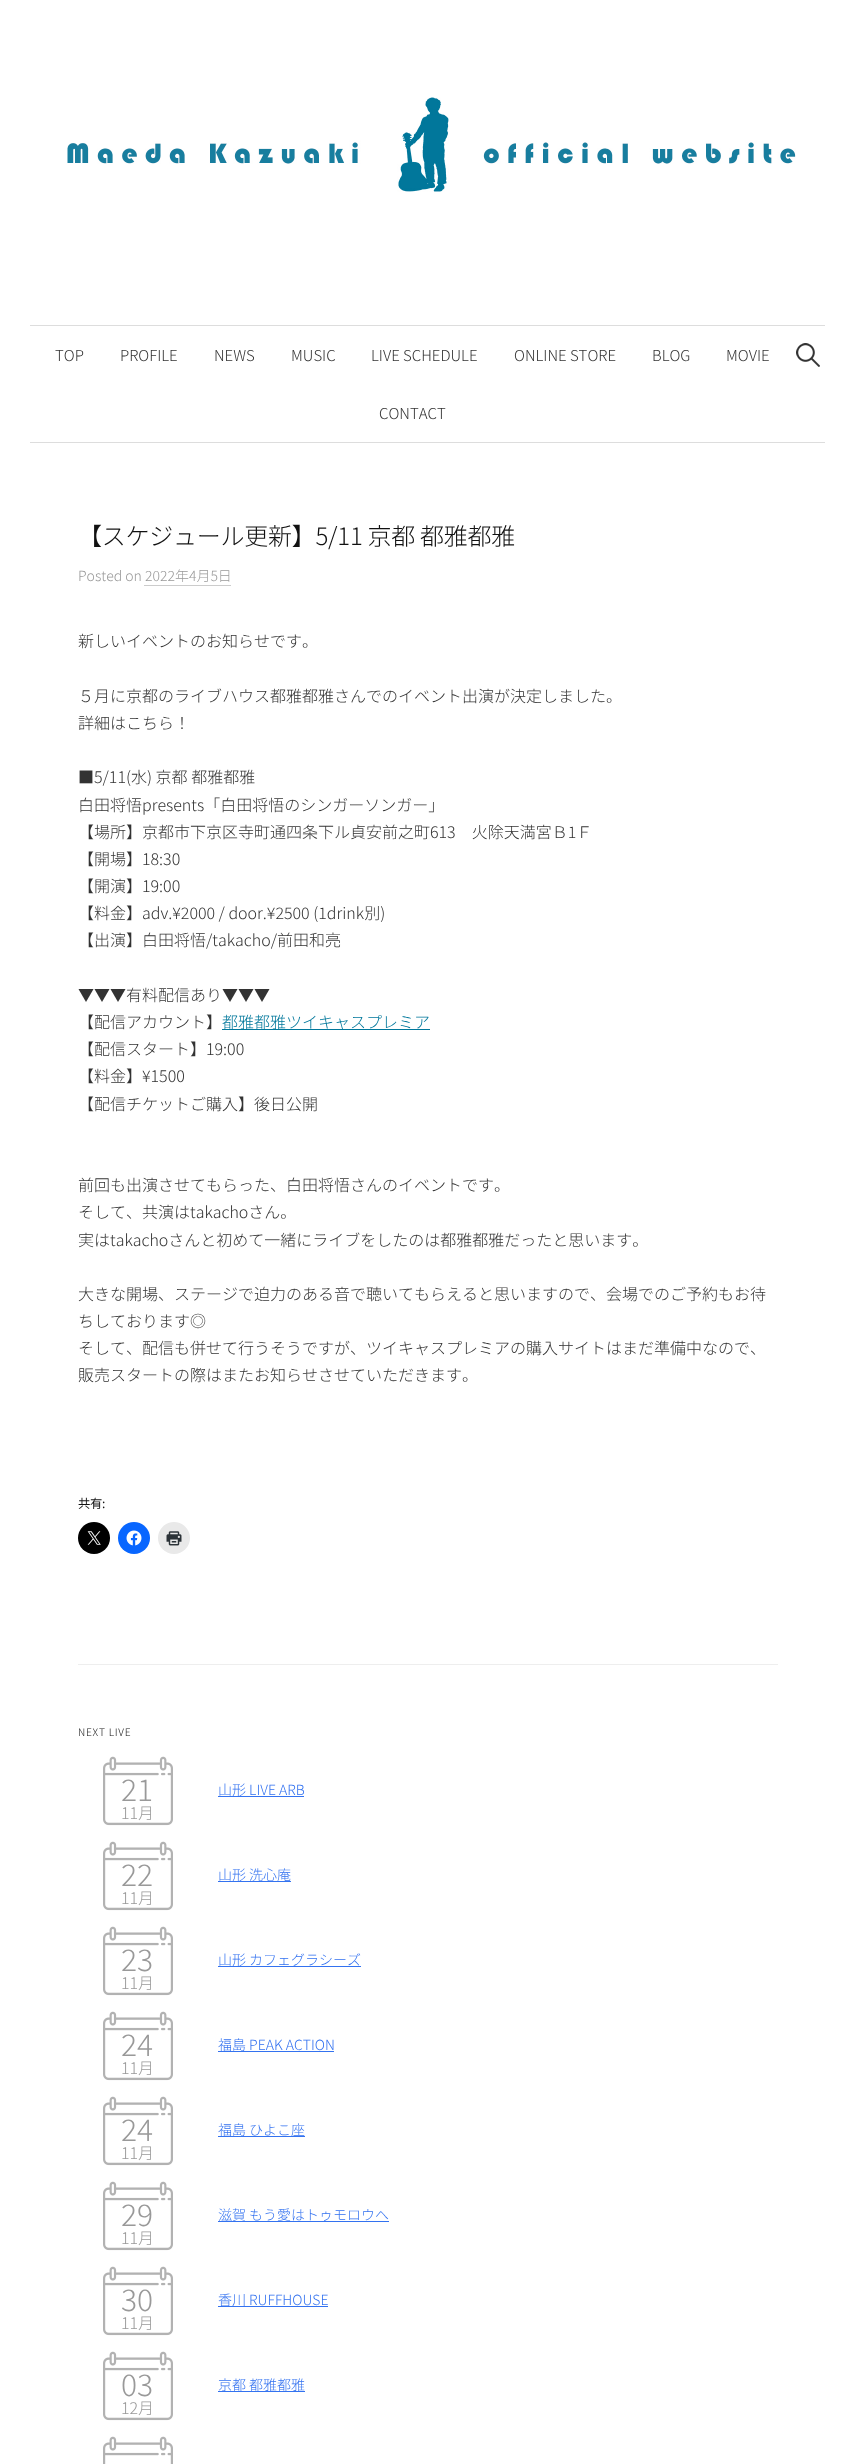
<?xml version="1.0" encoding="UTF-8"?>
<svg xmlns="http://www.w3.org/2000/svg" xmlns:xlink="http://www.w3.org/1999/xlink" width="855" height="2464">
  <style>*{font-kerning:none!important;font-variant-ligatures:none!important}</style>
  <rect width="100%" height="100%" fill="#ffffff" />
  <image x="67" y="97" width="729" height="95" xlink:href="image1.png" />
  <rect x="30" y="325" width="795" height="1" fill="#dddddd" />
  <rect x="30" y="442" width="795" height="1" fill="#dddddd" />
  <image x="796" y="343" width="24" height="24" xlink:href="image2.png" />
  <rect x="144" y="585" width="87" height="1" fill="#cccccc" />
  <rect x="222" y="1029" width="208" height="1" fill="#00779b" />
  <circle cx="94" cy="1538" r="16" fill="#000000" />
  <image x="87" y="1531" width="14" height="14" xlink:href="image3.png" />
  <circle cx="134" cy="1538" r="16" fill="#0866ff" />
  <image x="126" y="1530" width="16" height="16" xlink:href="image4.png" />
  <circle cx="174" cy="1538" r="16" fill="#e9e9e9" />
  <image x="166" y="1531" width="16" height="15" xlink:href="image5.png" />
  <rect x="78" y="1664" width="700" height="1" fill="#eeeeee" />
  <image x="103" y="1756" width="70" height="70" xlink:href="image6.png" />
  <rect x="218" y="1796" width="86" height="1" fill="#3372f0" />
  <image x="103" y="1841" width="70" height="70" xlink:href="image6.png" />
  <rect x="218" y="1881" width="73" height="1" fill="#3372f0" />
  <image x="103" y="1926" width="70" height="70" xlink:href="image6.png" />
  <rect x="218" y="1966" width="143" height="1" fill="#3372f0" />
  <image x="103" y="2011" width="70" height="70" xlink:href="image6.png" />
  <rect x="218" y="2051" width="116" height="1" fill="#3372f0" />
  <image x="103" y="2096" width="70" height="70" xlink:href="image6.png" />
  <rect x="218" y="2136" width="87" height="1" fill="#3372f0" />
  <image x="103" y="2181" width="70" height="70" xlink:href="image6.png" />
  <rect x="218" y="2221" width="171" height="1" fill="#3372f0" />
  <image x="103" y="2266" width="70" height="70" xlink:href="image6.png" />
  <rect x="218" y="2306" width="110" height="1" fill="#3372f0" />
  <image x="103" y="2351" width="70" height="70" xlink:href="image6.png" />
  <rect x="218" y="2391" width="87" height="1" fill="#3372f0" />
  <image x="103" y="2436" width="70" height="28" xlink:href="image7.png" />
  <text x="55" y="361" style="font-family: Noto Sans JP; font-size: 15px; font-weight: 100; fill: #333333">TOP</text>
  <text x="120" y="361" style="font-family: Noto Sans JP; font-size: 15px; font-weight: 100; fill: #333333">PROFILE</text>
  <text x="214" y="361" style="font-family: Noto Sans JP; font-size: 15px; font-weight: 100; fill: #333333">NEWS</text>
  <text x="291" y="361" style="font-family: Noto Sans JP; font-size: 15px; font-weight: 100; fill: #333333">MUSIC</text>
  <text x="371" y="361" style="font-family: Noto Sans JP; font-size: 15px; font-weight: 100; fill: #333333">LIVE SCHEDULE</text>
  <text x="514" y="361" style="font-family: Noto Sans JP; font-size: 15px; font-weight: 100; fill: #333333">ONLINE STORE</text>
  <text x="652" y="361" style="font-family: Noto Sans JP; font-size: 15px; font-weight: 100; fill: #333333">BLOG</text>
  <text x="726" y="361" style="font-family: Noto Sans JP; font-size: 15px; font-weight: 100; fill: #333333">MOVIE</text>
  <text x="379" y="419" style="font-family: Noto Sans JP; font-size: 15px; font-weight: 100; fill: #333333">CONTACT</text>
  <text x="78" y="545" style="font-family: Noto Sans JP; font-size: 24px; font-weight: 100; letter-spacing: -0.25px; fill: #111111">【スケジュール更新】5/11 京都 都雅都雅</text>
  <text x="78" y="581" style="font-family: Noto Sans JP; font-size: 14px; font-weight: 100; fill: #999999">Posted on 2022年4月5日</text>
  <text x="78" y="647" style="font-family: Noto Sans JP; font-size: 16px; font-weight: 100; fill: #333333">新しいイベントのお知らせです。</text>
  <text x="78" y="702" style="font-family: Noto Sans JP; font-size: 16px; font-weight: 100; fill: #333333">５月に京都のライブハウス都雅都雅さんでのイベント出演が決定しました。</text>
  <text x="78" y="729" style="font-family: Noto Sans JP; font-size: 16px; font-weight: 100; fill: #333333">詳細はこちら！</text>
  <text x="78" y="783" style="font-family: Noto Sans JP; font-size: 16px; font-weight: 100; fill: #333333">■5/11(水) 京都 都雅都雅</text>
  <text x="78" y="811" style="font-family: Noto Sans JP; font-size: 16px; font-weight: 100; fill: #333333">白田将悟presents「白田将悟のシンガーソンガー」</text>
  <text x="78" y="838" style="font-family: Noto Sans JP; font-size: 16px; font-weight: 100; fill: #333333">【場所】京都市下京区寺町通四条下ル貞安前之町613　火除天満宮Ｂ1Ｆ</text>
  <text x="78" y="865" style="font-family: Noto Sans JP; font-size: 16px; font-weight: 100; fill: #333333">【開場】18:30</text>
  <text x="78" y="892" style="font-family: Noto Sans JP; font-size: 16px; font-weight: 100; fill: #333333">【開演】19:00</text>
  <text x="78" y="919" style="font-family: Noto Sans JP; font-size: 16px; font-weight: 100; fill: #333333">【料金】adv.¥2000 / door.¥2500 (1drink別)</text>
  <text x="78" y="946" style="font-family: Noto Sans JP; font-size: 16px; font-weight: 100; fill: #333333">【出演】白田将悟/takacho/前田和亮</text>
  <text x="78" y="1001" style="font-family: Noto Sans JP; font-size: 16px; font-weight: 100; fill: #333333">▼▼▼有料配信あり▼▼▼</text>
  <text x="78" y="1028" style="font-family: Noto Sans JP; font-size: 16px; font-weight: 100; fill: #333333">【配信アカウント】</text>
  <text x="222" y="1028" style="font-family: Noto Sans JP; font-size: 16px; font-weight: 100; fill: #00779b">都雅都雅ツイキャスプレミア</text>
  <text x="78" y="1055" style="font-family: Noto Sans JP; font-size: 16px; font-weight: 100; fill: #333333">【配信スタート】19:00</text>
  <text x="78" y="1082" style="font-family: Noto Sans JP; font-size: 16px; font-weight: 100; fill: #333333">【料金】¥1500</text>
  <text x="78" y="1110" style="font-family: Noto Sans JP; font-size: 16px; font-weight: 100; fill: #333333">【配信チケットご購入】後日公開</text>
  <text x="78" y="1191" style="font-family: Noto Sans JP; font-size: 16px; font-weight: 100; fill: #333333">前回も出演させてもらった、白田将悟さんのイベントです。</text>
  <text x="78" y="1218" style="font-family: Noto Sans JP; font-size: 16px; font-weight: 100; fill: #333333">そして、共演はtakachoさん。</text>
  <text x="78" y="1246" style="font-family: Noto Sans JP; font-size: 16px; font-weight: 100; fill: #333333">実はtakachoさんと初めて一緒にライブをしたのは都雅都雅だったと思います。</text>
  <text x="78" y="1300" style="font-family: Noto Sans JP; font-size: 16px; font-weight: 100; fill: #333333">大きな開場、ステージで迫力のある音で聴いてもらえると思いますので、会場でのご予約もお待</text>
  <text x="78" y="1327" style="font-family: Noto Sans JP; font-size: 16px; font-weight: 100; fill: #333333">ちしております◎</text>
  <text x="78" y="1354" style="font-family: Noto Sans JP; font-size: 16px; font-weight: 100; fill: #333333">そして、配信も併せて行うそうですが、ツイキャスプレミアの購入サイトはまだ準備中なので、</text>
  <text x="78" y="1381" style="font-family: Noto Sans JP; font-size: 16px; font-weight: 100; fill: #333333">販売スタートの際はまたお知らせさせていただきます。</text>
  <text x="78" y="1508" style="font-family: Noto Sans JP; font-size: 12px; font-weight: bold; fill: #111111">共有:</text>
  <text x="78" y="1736" style="font-family: Noto Sans JP; font-size: 10.25px; font-weight: 100; letter-spacing: 0.75px; fill: #111111">NEXT LIVE</text>
  <text x="121" y="1801" style="font-family: Noto Sans JP; font-size: 30px; font-weight: 100; fill: #999999">21</text>
  <text x="121" y="1819" style="font-family: Noto Sans JP; font-size: 16px; font-weight: 100; fill: #999999">11月</text>
  <text x="218" y="1795" style="font-family: Noto Sans JP; font-size: 14px; font-weight: 100; fill: #3372f0">山形 LIVE ARB</text>
  <text x="121" y="1886" style="font-family: Noto Sans JP; font-size: 30px; font-weight: 100; fill: #999999">22</text>
  <text x="121" y="1904" style="font-family: Noto Sans JP; font-size: 16px; font-weight: 100; fill: #999999">11月</text>
  <text x="218" y="1880" style="font-family: Noto Sans JP; font-size: 14px; font-weight: 100; fill: #3372f0">山形 洗心庵</text>
  <text x="121" y="1971" style="font-family: Noto Sans JP; font-size: 30px; font-weight: 100; fill: #999999">23</text>
  <text x="121" y="1989" style="font-family: Noto Sans JP; font-size: 16px; font-weight: 100; fill: #999999">11月</text>
  <text x="218" y="1965" style="font-family: Noto Sans JP; font-size: 14px; font-weight: 100; fill: #3372f0">山形 カフェグラシーズ</text>
  <text x="121" y="2056" style="font-family: Noto Sans JP; font-size: 30px; font-weight: 100; fill: #999999">24</text>
  <text x="121" y="2074" style="font-family: Noto Sans JP; font-size: 16px; font-weight: 100; fill: #999999">11月</text>
  <text x="218" y="2050" style="font-family: Noto Sans JP; font-size: 14px; font-weight: 100; fill: #3372f0">福島 PEAK ACTION</text>
  <text x="121" y="2141" style="font-family: Noto Sans JP; font-size: 30px; font-weight: 100; fill: #999999">24</text>
  <text x="121" y="2159" style="font-family: Noto Sans JP; font-size: 16px; font-weight: 100; fill: #999999">11月</text>
  <text x="218" y="2135" style="font-family: Noto Sans JP; font-size: 14px; font-weight: 100; fill: #3372f0">福島 ひよこ座</text>
  <text x="121" y="2226" style="font-family: Noto Sans JP; font-size: 30px; font-weight: 100; fill: #999999">29</text>
  <text x="121" y="2244" style="font-family: Noto Sans JP; font-size: 16px; font-weight: 100; fill: #999999">11月</text>
  <text x="218" y="2220" style="font-family: Noto Sans JP; font-size: 14px; font-weight: 100; fill: #3372f0">滋賀 もう愛はトゥモロウへ</text>
  <text x="121" y="2311" style="font-family: Noto Sans JP; font-size: 30px; font-weight: 100; fill: #999999">30</text>
  <text x="121" y="2329" style="font-family: Noto Sans JP; font-size: 16px; font-weight: 100; fill: #999999">11月</text>
  <text x="218" y="2305" style="font-family: Noto Sans JP; font-size: 14px; font-weight: 100; fill: #3372f0">香川 RUFFHOUSE</text>
  <text x="121" y="2396" style="font-family: Noto Sans JP; font-size: 30px; font-weight: 100; fill: #999999">03</text>
  <text x="121" y="2414" style="font-family: Noto Sans JP; font-size: 16px; font-weight: 100; fill: #999999">12月</text>
  <text x="218" y="2390" style="font-family: Noto Sans JP; font-size: 14px; font-weight: 100; fill: #3372f0">京都 都雅都雅</text>
</svg>
